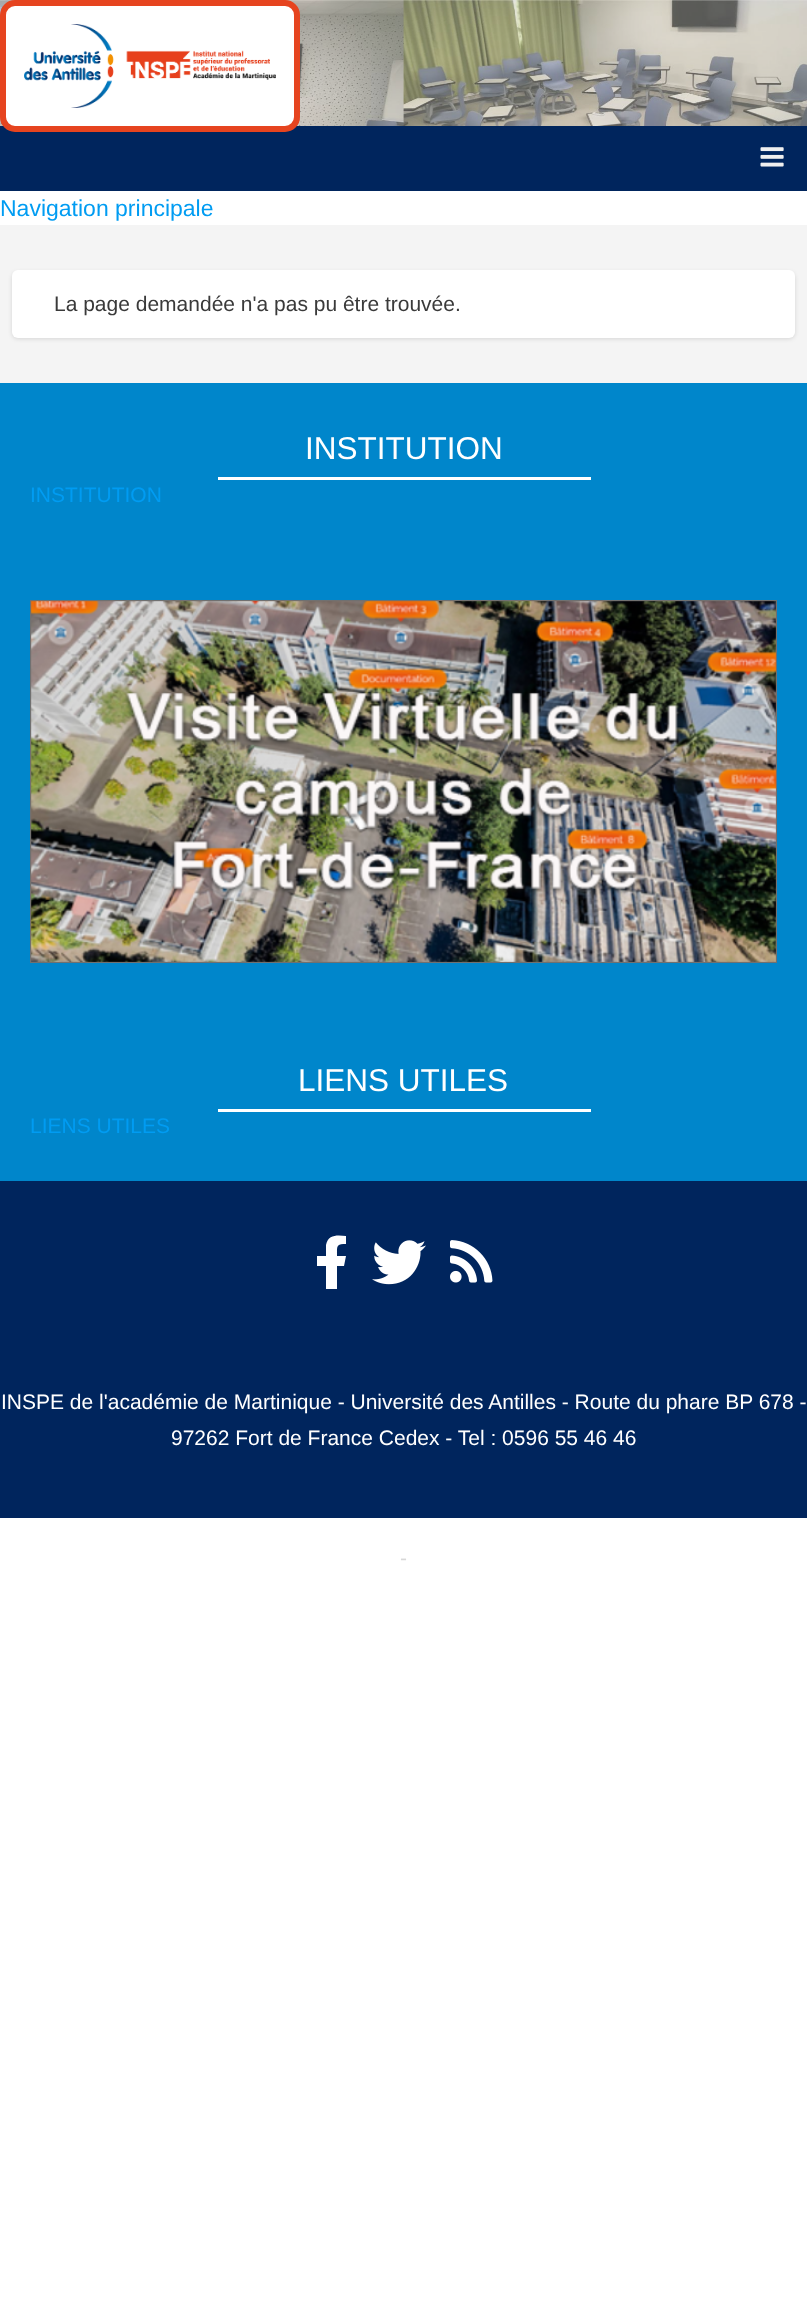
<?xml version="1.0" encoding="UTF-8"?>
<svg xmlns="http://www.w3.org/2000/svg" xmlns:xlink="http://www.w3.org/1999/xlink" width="807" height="2306">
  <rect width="100%" height="100%" fill="#ffffff" />
  <rect width="807" height="126" fill="#bebebe" />
  <image x="0" y="0" width="807" height="126" xlink:href="image1.png" />
  <rect y="126" width="807" height="65" fill="#00255d" />
  <rect x="3" y="3" width="294" height="126" rx="12" fill="#ffffff" stroke="#e6441f" stroke-width="6" />
  <image x="24" y="24" width="252" height="84" xlink:href="image2.png" />
  <image x="760" y="147" width="24" height="20" xlink:href="image3.png" />
  <rect y="225" width="807" height="158" fill="#f4f4f4" />
  <rect x="12" y="272" width="783" height="67" rx="6" fill="#000000" fill-opacity="0.12" filter="blur(2px)" />
  <rect x="12" y="270" width="783" height="68" rx="6" fill="#ffffff" />
  <rect y="383" width="807" height="798" fill="#0086cb" />
  <rect x="218" y="477" width="373" height="3" fill="#ffffff" />
  <image x="30" y="600" width="747" height="363" xlink:href="image4.png" />
  <rect x="218" y="1109" width="373" height="3" fill="#ffffff" />
  <rect y="1181" width="807" height="337" fill="#00255d" />
  <path d="M 344 1266 h -7 v 23 h -11 v -23 h -9 v -10 h 9 v -11 c 2 -11 12 -10 20 -9 v 8 c -10 0 -9 2 -9 12 h 9 z" fill="#ffffff" />
  <image x="372" y="1240" width="54" height="45" xlink:href="image5.png" />
  <image x="450" y="1240" width="43" height="43" xlink:href="image6.png" />
  <text x="0" y="216" style="font-family: Liberation Sans; font-size: 23px; fill: #009cf2">Navigation principale</text>
  <text x="54" y="311" style="font-family: Liberation Sans; font-size: 21px; fill: #3a3a3a">La page demandée n'a pas pu être trouvée.</text>
  <text x="305" y="459" style="font-family: Liberation Sans; font-size: 31.5px; fill: #ffffff">INSTITUTION</text>
  <text x="30" y="502" style="font-family: Liberation Sans; font-size: 21px; fill: #009cf2">INSTITUTION</text>
  <text x="298" y="1091" style="font-family: Liberation Sans; font-size: 31.5px; fill: #ffffff">LIENS UTILES</text>
  <text x="30" y="1133" style="font-family: Liberation Sans; font-size: 21px; fill: #009cf2">LIENS UTILES</text>
  <text x="1" y="1409" style="font-family: Liberation Sans; font-size: 21px; fill: #ffffff">INSPE de l'académie de Martinique - Université des Antilles - Route du phare BP 678 -</text>
  <text x="171" y="1445" style="font-family: Liberation Sans; font-size: 21px; fill: #ffffff">97262 Fort de France Cedex - Tel : 0596 55 46 46</text>
  <text x="400" y="1565" style="font-family: Liberation Sans; font-size: 21px; fill: #d8d8d8">-</text>
</svg>
